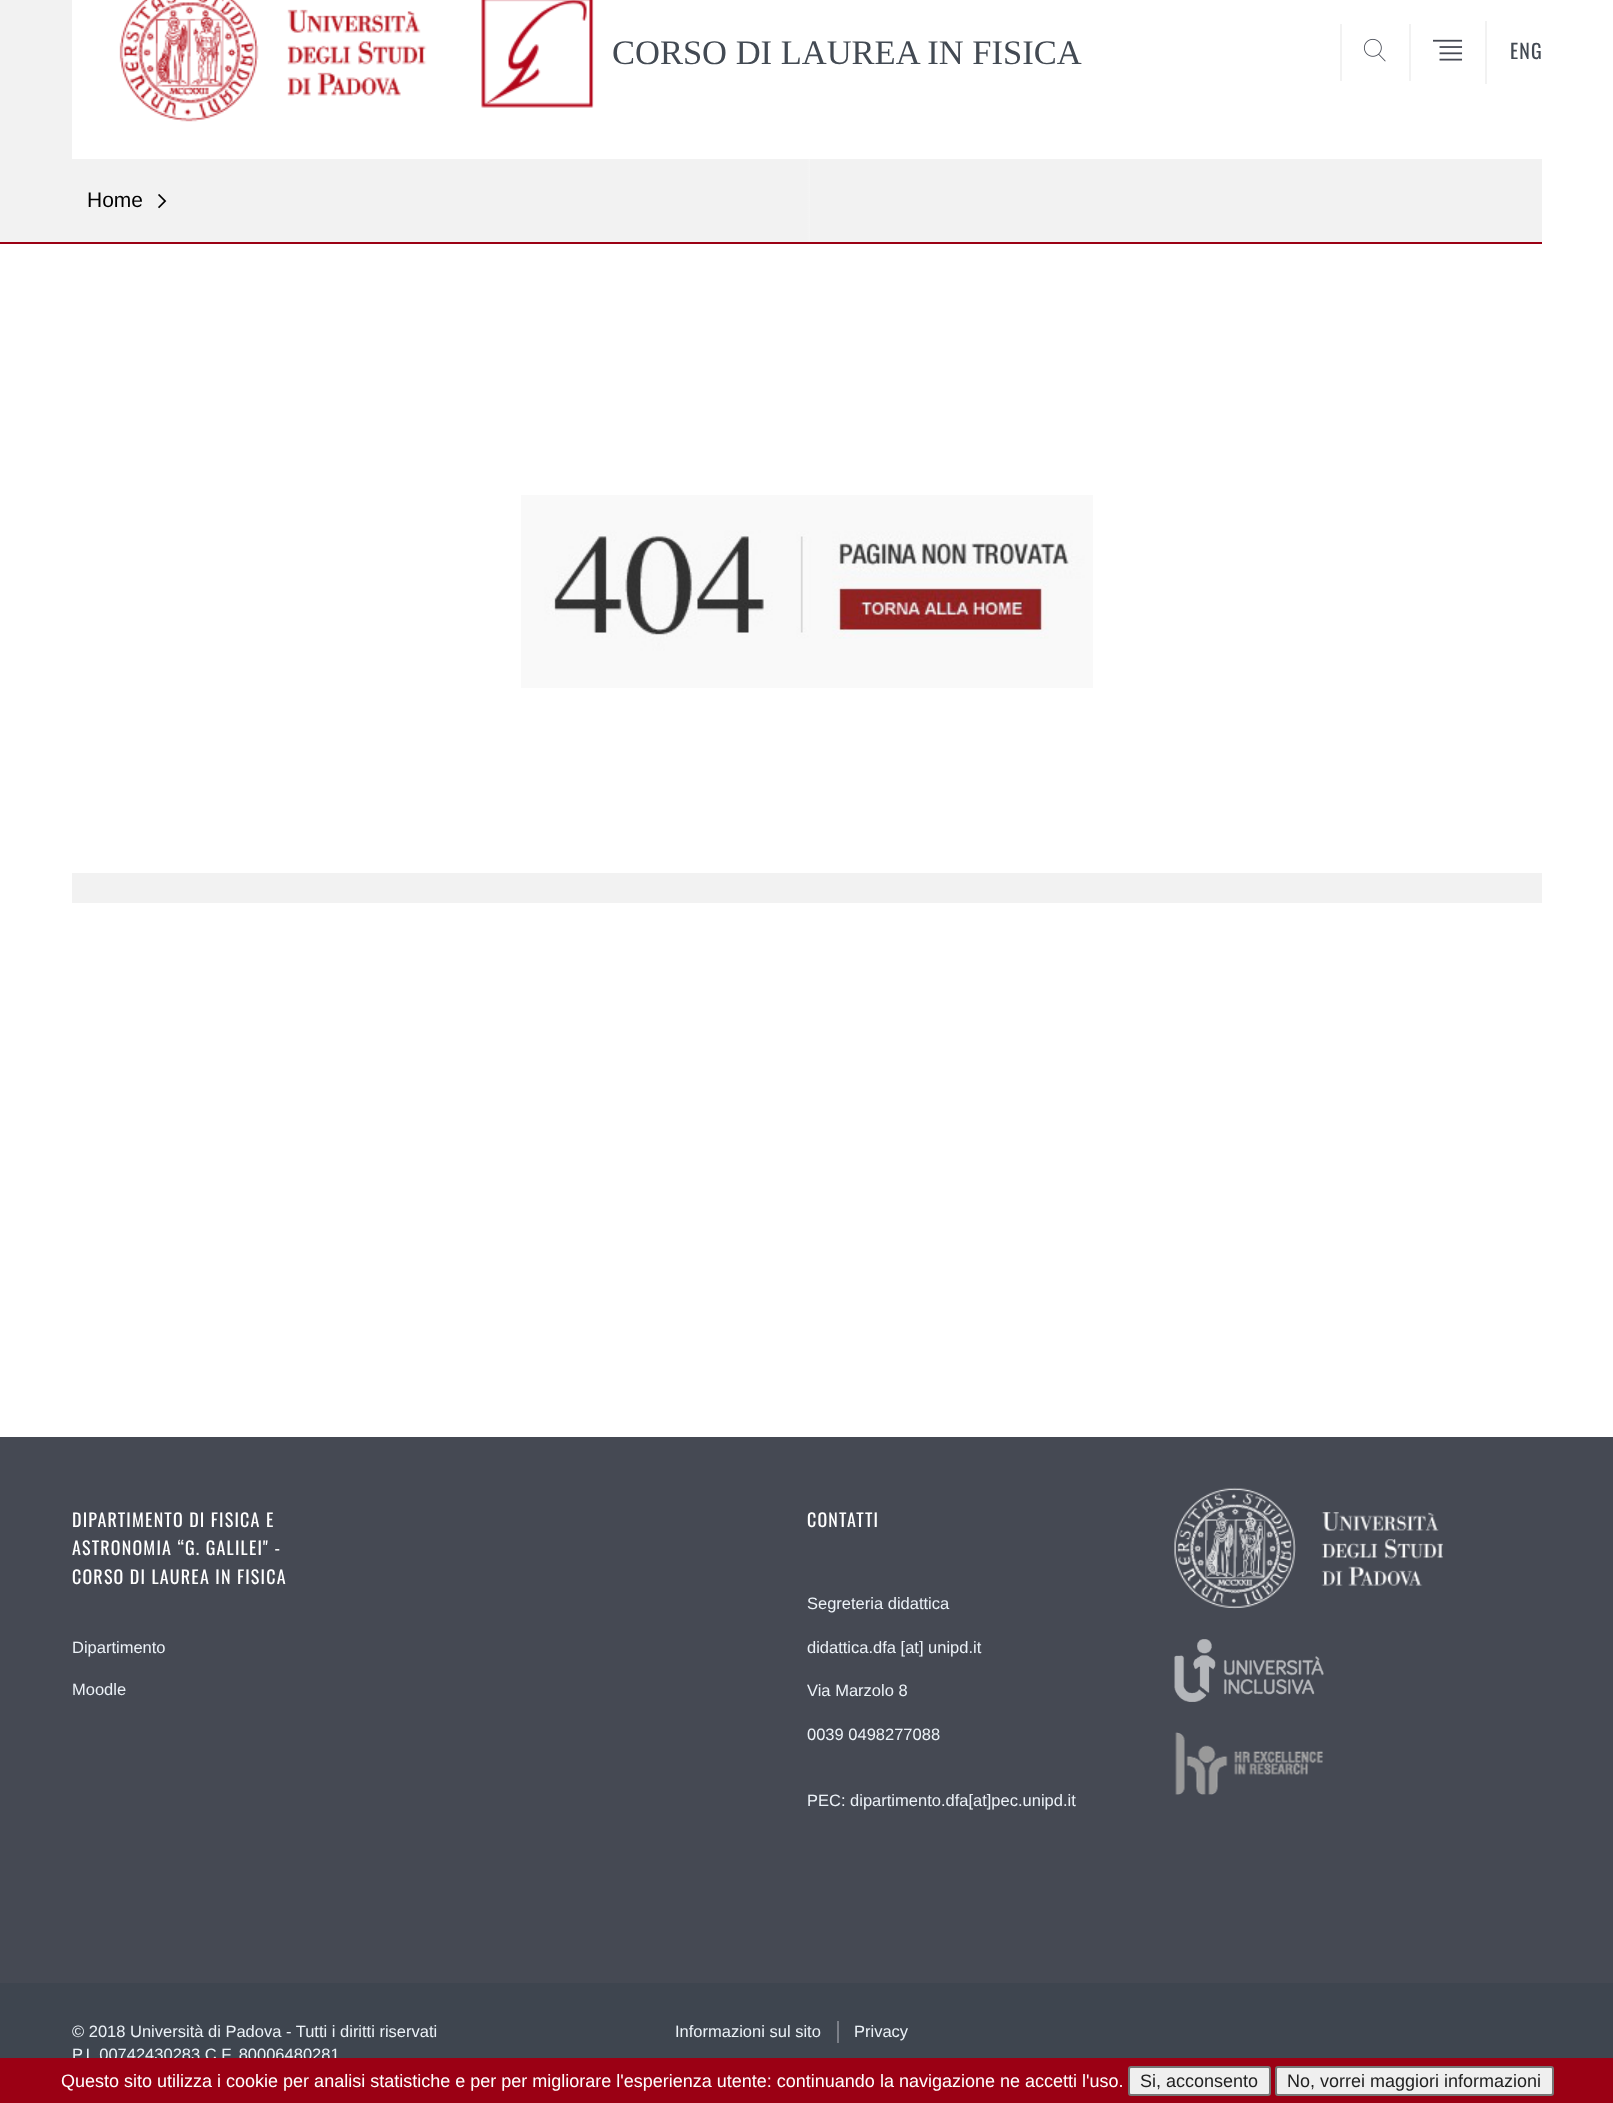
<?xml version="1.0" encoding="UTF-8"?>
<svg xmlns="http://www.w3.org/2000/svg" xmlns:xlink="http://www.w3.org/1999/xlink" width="1613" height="2103">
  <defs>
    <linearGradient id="g1" gradientUnits="userSpaceOnUse" x1="0" y1="200" x2="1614" y2="200"><stop offset="0" stop-color="#f2f2f2" /><stop offset="0.5" stop-color="#f2f2f2" /><stop offset="0.51" stop-color="#ffffff" /><stop offset="1" stop-color="#ffffff" /></linearGradient>
    <linearGradient id="g2" gradientUnits="userSpaceOnUse" x1="0" y1="242" x2="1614" y2="242"><stop offset="0" stop-color="#9b0014" /><stop offset="0.5" stop-color="#9b0014" /><stop offset="0.51" stop-color="#ffffff" /><stop offset="1" stop-color="#ffffff" /></linearGradient>
  </defs>
  <rect width="100%" height="100%" fill="#ffffff" />
  <rect width="72" height="159" fill="#f2f2f2" />
  <image x="119" y="0" width="308" height="122" xlink:href="image1.png" />
  <image x="481" y="0" width="113" height="108" xlink:href="image2.png" />
  <rect x="1340" y="24" width="2" height="57" fill="#f2f2f2" />
  <image x="1363" y="38" width="23" height="24" xlink:href="image3.png" />
  <rect x="1409" y="24" width="2" height="57" fill="#f2f2f2" />
  <image x="1433" y="39" width="30" height="22" xlink:href="image4.png" />
  <rect x="1485" y="21" width="2" height="63" fill="#f2f2f2" />
  <rect y="159" width="820" height="83" fill="url(#g1)" />
  <rect x="810" y="159" width="732" height="83" fill="#f2f2f2" />
  <image x="158" y="194" width="9" height="15" xlink:href="image5.png" />
  <rect y="242" width="823" height="2" fill="url(#g2)" />
  <rect x="807" y="242" width="735" height="2" fill="#9b0014" />
  <image x="521" y="495" width="572" height="193" xlink:href="image6.png" />
  <rect x="72" y="873" width="1470" height="30" fill="#f2f2f2" />
  <rect y="1437" width="1613" height="546" fill="#454953" />
  <image x="1174" y="1487" width="269" height="122" xlink:href="image7.png" />
  <image x="1174" y="1639" width="150" height="63" xlink:href="image8.png" />
  <image x="1175" y="1732" width="148" height="63" xlink:href="image9.png" />
  <rect y="1983" width="1613" height="75" fill="#3e454f" />
  <rect x="837" y="2021" width="2" height="22" fill="#7b7f88" />
  <text x="612" y="64" style="font-family: Liberation Serif; font-size: 34.5px; fill: #434a53">CORSO DI LAUREA IN FISICA</text>
  <text x="1510" y="59" style="font-family: Oswald; font-size: 20px; letter-spacing: 1.2px; fill: #434a53">ENG</text>
  <text x="87" y="207" style="font-family: Liberation Sans; font-size: 21px; fill: #000000">Home</text>
  <text x="72" y="1527" style="font-family: Oswald; font-size: 18px; letter-spacing: 1.2px; fill: #ffffff">DIPARTIMENTO DI FISICA E</text>
  <text x="72" y="1555" style="font-family: Oswald; font-size: 18px; letter-spacing: 1.2px; fill: #ffffff">ASTRONOMIA “G. GALILEI" -</text>
  <text x="72" y="1584" style="font-family: Oswald; font-size: 18px; letter-spacing: 1.2px; fill: #ffffff">CORSO DI LAUREA IN FISICA</text>
  <text x="72" y="1653" style="font-family: Liberation Sans; font-size: 16.5px; fill: #ecf2f8">Dipartimento</text>
  <text x="72" y="1695" style="font-family: Liberation Sans; font-size: 16.5px; fill: #ecf2f8">Moodle</text>
  <text x="807" y="1527" style="font-family: Oswald; font-size: 18px; letter-spacing: 1.2px; fill: #ffffff">CONTATTI</text>
  <text x="807" y="1609" style="font-family: Liberation Sans; font-size: 16.5px; fill: #ecf2f8">Segreteria didattica</text>
  <text x="807" y="1653" style="font-family: Liberation Sans; font-size: 16.5px; fill: #ecf2f8">didattica.dfa [at] unipd.it</text>
  <text x="807" y="1696" style="font-family: Liberation Sans; font-size: 16.5px; fill: #ecf2f8">Via Marzolo 8</text>
  <text x="807" y="1740" style="font-family: Liberation Sans; font-size: 16.5px; fill: #ecf2f8">0039 0498277088</text>
  <text x="807" y="1806" style="font-family: Liberation Sans; font-size: 16.5px; fill: #ecf2f8">PEC: dipartimento.dfa[at]pec.unipd.it</text>
  <text x="72" y="2037" style="font-family: Liberation Sans; font-size: 16.5px; fill: #ecf2f8">© 2018 Università di Padova - Tutti i diritti riservati</text>
  <text x="72" y="2060" style="font-family: Liberation Sans; font-size: 16.5px; fill: #ecf2f8">P.I. 00742430283 C.F. 80006480281</text>
  <text x="675" y="2037" style="font-family: Liberation Sans; font-size: 16.5px; fill: #ecf2f8">Informazioni sul sito</text>
  <text x="854" y="2037" style="font-family: Liberation Sans; font-size: 16.5px; fill: #ecf2f8">Privacy</text>
  <rect y="2058" width="1613" height="45" fill="#9b0014" />
  <text x="61" y="2087" style="font-family: Liberation Sans; font-size: 18px; fill: #ffffff">Questo sito utilizza i cookie per analisi statistiche e per per migliorare l'esperienza utente: continuando la navigazione ne accetti l'uso.</text>
  <rect x="1129" y="2067" width="141" height="28" rx="2" fill="#efefef" stroke="#767676" stroke-width="2" />
  <text x="1140" y="2087" style="font-family: Liberation Sans; font-size: 18px; fill: #222222">Si, acconsento</text>
  <rect x="1276" y="2067" width="277" height="28" rx="2" fill="#efefef" stroke="#767676" stroke-width="2" />
  <text x="1287" y="2087" style="font-family: Liberation Sans; font-size: 18px; fill: #222222">No, vorrei maggiori informazioni</text>
</svg>
